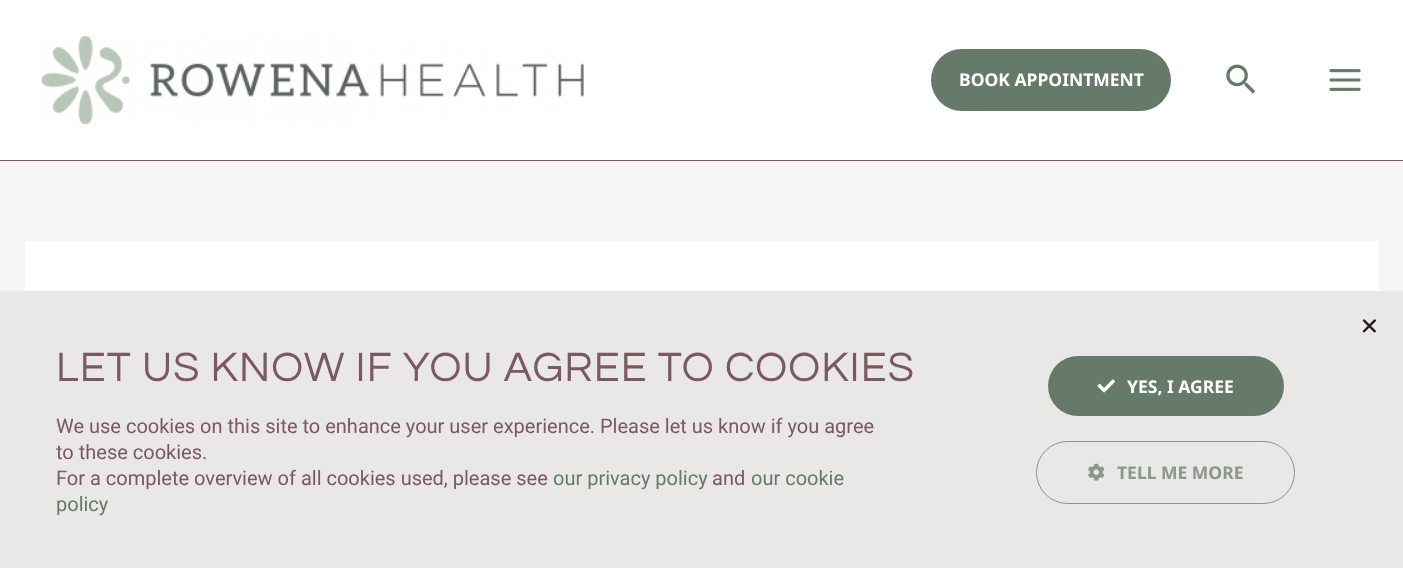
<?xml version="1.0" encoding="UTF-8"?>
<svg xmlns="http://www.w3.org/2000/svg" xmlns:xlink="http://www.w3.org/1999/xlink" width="1403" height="568">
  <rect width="100%" height="100%" fill="#f5f5f5" />
  <rect width="1403" height="160" fill="#ffffff" />
  <rect y="160" width="1403" height="1" fill="#7a5961" />
  <image x="41" y="35" width="543" height="90" xlink:href="image1.png" />
  <rect x="931" y="49" width="240" height="62" rx="31" fill="#667a69" />
  <image x="1226" y="64" width="30" height="30" xlink:href="image2.png" />
  <image x="1329" y="69" width="32" height="22" xlink:href="image3.png" />
  <rect x="25" y="241" width="1354" height="50" fill="#ffffff" />
  <rect y="291" width="1403" height="277" fill="#e9e8e6" />
  <image x="1362" y="319" width="14" height="14" xlink:href="image4.png" />
  <rect x="1048" y="356" width="236" height="60" rx="30" fill="#667a69" />
  <image x="1097" y="379" width="18" height="14" xlink:href="image5.png" />
  <rect x="1036.5" y="441.5" width="258" height="62" rx="31" fill="none" stroke="#88978a" />
  <image x="1088" y="463" width="17" height="18" xlink:href="image6.png" />
  <text x="959" y="86" style="font-family: Noto Sans; font-size: 17.5px; font-weight: bold; fill: #ffffff">BOOK APPOINTMENT</text>
  <text x="56" y="381" style="font-family: Questrial; font-size: 42.5px; letter-spacing: 1.1px; fill: #7a5961">LET US KNOW IF YOU AGREE TO COOKIES</text>
  <text x="56" y="433" style="font-family: Roboto; font-size: 20px; fill: #7a5961">We use cookies on this site to enhance your user experience. Please let us know if you agree</text>
  <text x="56" y="459" style="font-family: Roboto; font-size: 20px; fill: #7a5961">to these cookies.</text>
  <text x="56" y="485" style="font-family: Roboto; font-size: 20px; fill: #7a5961">For a complete overview of all cookies used, please see</text>
  <text x="553" y="485" style="font-family: Roboto; font-size: 20px; fill: #667a69">our privacy policy</text>
  <text x="712" y="485" style="font-family: Roboto; font-size: 20px; fill: #7a5961">and</text>
  <text x="751" y="485" style="font-family: Roboto; font-size: 20px; fill: #667a69">our cookie</text>
  <text x="56" y="511" style="font-family: Roboto; font-size: 20px; fill: #667a69">policy</text>
  <text x="1127" y="393" style="font-family: Noto Sans; font-size: 17.5px; font-weight: bold; fill: #ffffff">YES, I AGREE</text>
  <text x="1117" y="479" style="font-family: Noto Sans; font-size: 17.5px; font-weight: bold; fill: #89988b">TELL ME MORE</text>
</svg>
